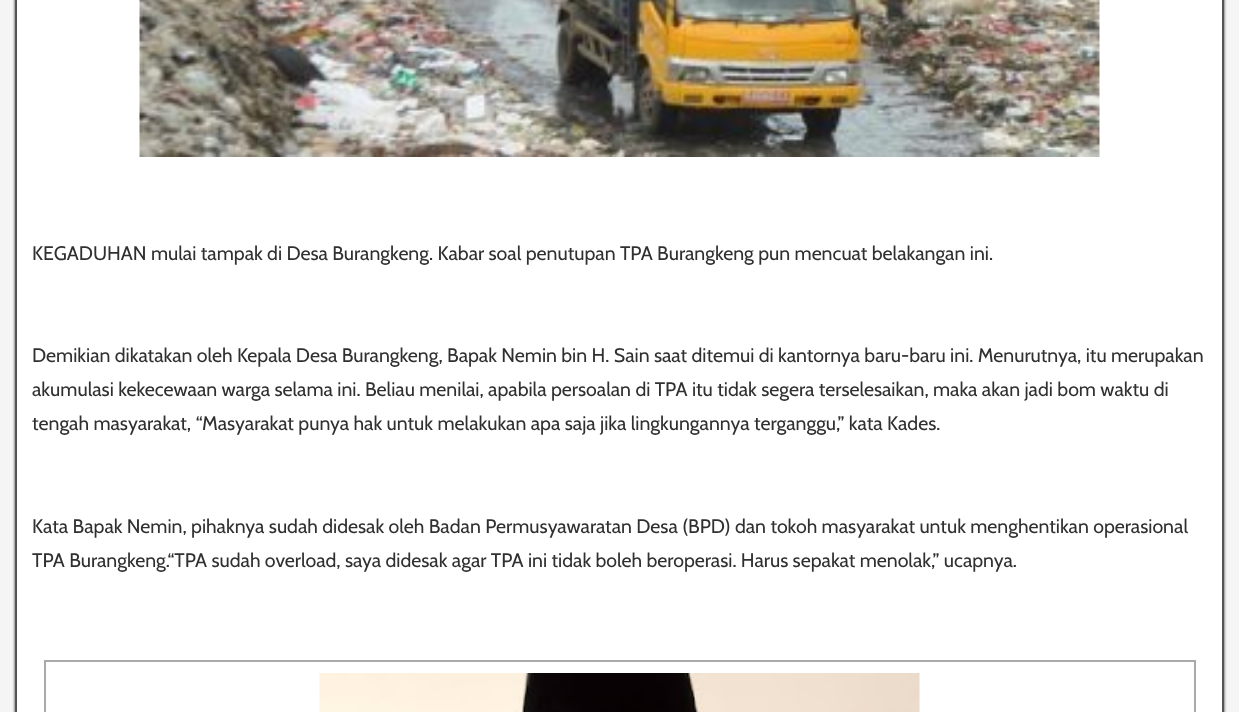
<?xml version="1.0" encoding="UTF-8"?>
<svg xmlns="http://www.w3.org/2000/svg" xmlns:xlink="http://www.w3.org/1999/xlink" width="1239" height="712">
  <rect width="100%" height="100%" fill="#f5f5f5" />
  <rect x="15" y="-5" width="1209" height="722" fill="#333333" filter="blur(1.5px)" />
  <rect x="17" width="1205" height="712" fill="#ffffff" />
  <path d="M 1224 -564 v 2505 l -2 -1 v -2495 z" fill="#555555" />
  <path d="M 15 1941 v -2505 l 1 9 v 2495 z" fill="#555555" />
  <image x="139" y="0" width="961" height="157" xlink:href="image1.png" />
  <rect x="44" y="660" width="1152" height="2" fill="#aaaaaa" />
  <rect x="1194" y="660" width="2" height="52" fill="#aaaaaa" />
  <rect x="44" y="660" width="2" height="52" fill="#aaaaaa" />
  <image x="319" y="673" width="601" height="39" xlink:href="image2.png" />
  <text x="32" y="260" style="font-family: Cabin; font-size: 19.5px; fill: #303030">KEGADUHAN mulai tampak di Desa Burangkeng. Kabar soal penutupan TPA Burangkeng pun mencuat belakangan ini.</text>
  <text x="32" y="362" style="font-family: Cabin; font-size: 19.5px; fill: #303030">Demikian dikatakan oleh Kepala Desa Burangkeng, Bapak Nemin bin H. Sain saat ditemui di kantornya baru-baru ini. Menurutnya, itu merupakan</text>
  <text x="32" y="396" style="font-family: Cabin; font-size: 19.5px; fill: #303030">akumulasi kekecewaan warga selama ini. Beliau menilai, apabila persoalan di TPA itu tidak segera terselesaikan, maka akan jadi bom waktu di</text>
  <text x="32" y="430" style="font-family: Cabin; font-size: 19.5px; fill: #303030">tengah masyarakat, “Masyarakat punya hak untuk melakukan apa saja jika lingkungannya terganggu,” kata Kades.</text>
  <text x="32" y="533" style="font-family: Cabin; font-size: 19.5px; fill: #303030">Kata Bapak Nemin, pihaknya sudah didesak oleh Badan Permusyawaratan Desa (BPD) dan tokoh masyarakat untuk menghentikan operasional</text>
  <text x="32" y="567" style="font-family: Cabin; font-size: 19.5px; fill: #303030">TPA Burangkeng.“TPA sudah overload, saya didesak agar TPA ini tidak boleh beroperasi. Harus sepakat menolak,” ucapnya.</text>
</svg>
